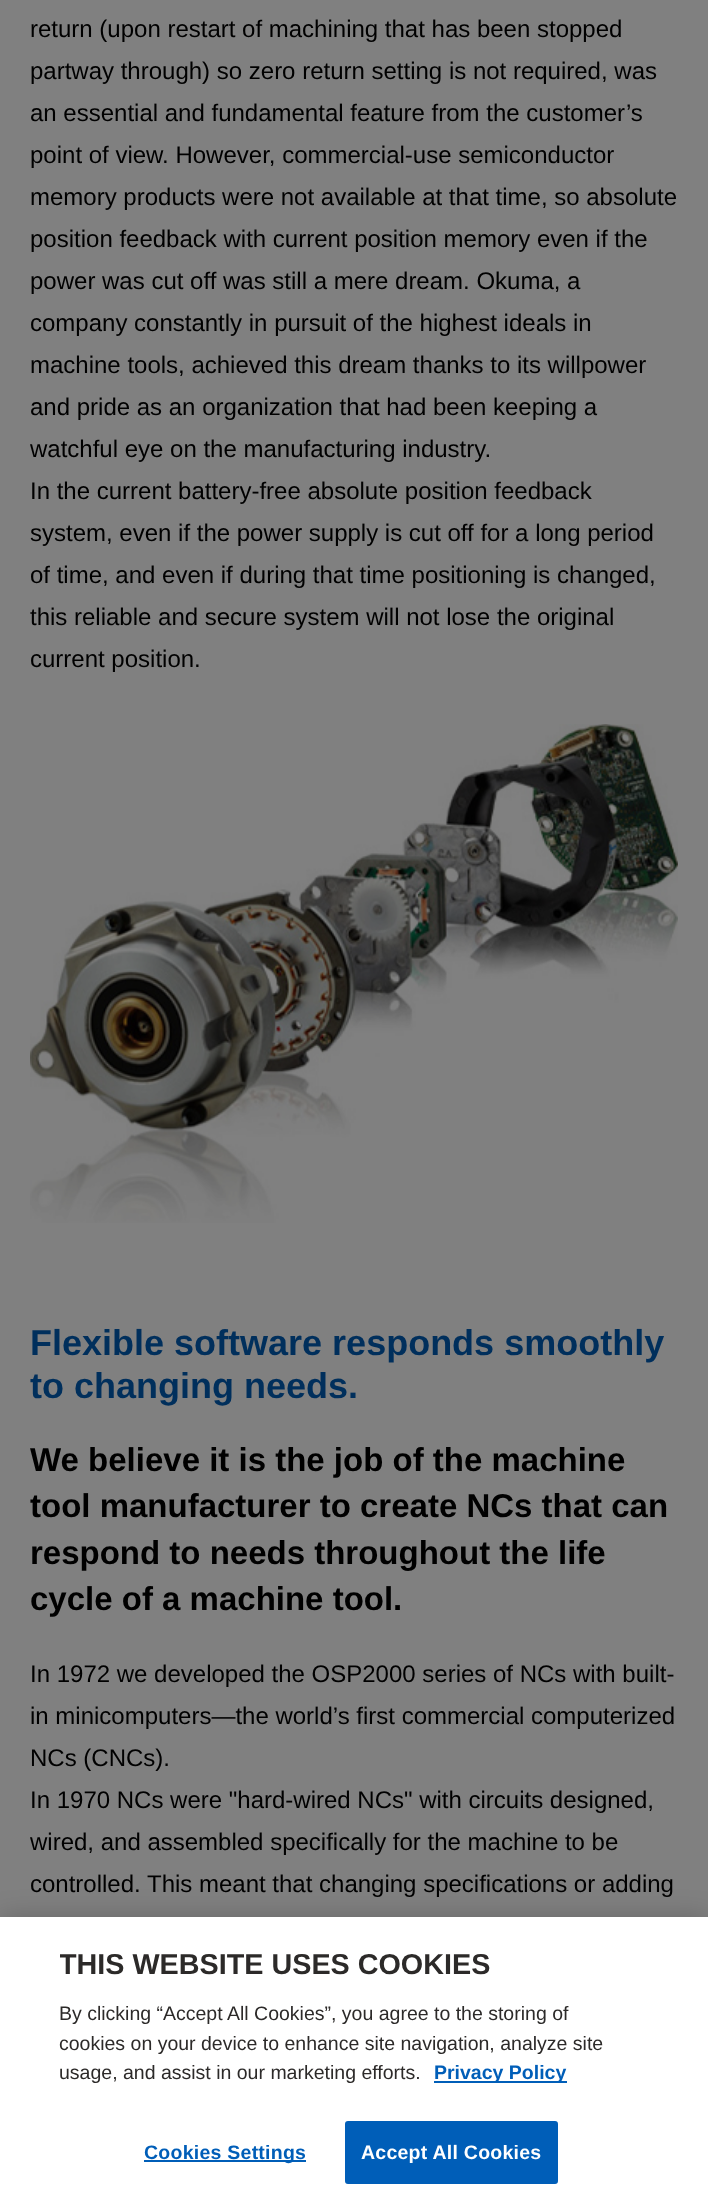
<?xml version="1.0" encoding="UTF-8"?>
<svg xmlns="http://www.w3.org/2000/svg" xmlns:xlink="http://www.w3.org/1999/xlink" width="708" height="2207">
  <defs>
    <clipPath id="clip1"><rect x="60" y="1947" width="557" height="159" /></clipPath>
  </defs>
  <rect width="100%" height="100%" fill="#808080" />
  <image x="30" y="724" width="648" height="499" xlink:href="image1.png" />
  <rect y="1917" width="708" height="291" fill="#000000" fill-opacity="0.2" filter="blur(13.5px)" />
  <rect y="1917" width="708" height="290" fill="#ffffff" />
  <rect x="434" y="2081" width="133" height="2" fill="#005eb8" />
  <rect x="144" y="2160" width="162" height="2" fill="#005eb8" />
  <rect x="346" y="2122" width="211" height="61" rx="2" fill="#005eb8" stroke="#005eb8" stroke-width="2" />
  <text x="30" y="37" style="font-family: Liberation Sans; font-size: 24px; fill: #000000">return (upon restart of machining that has been stopped</text>
  <text x="30" y="79" style="font-family: Liberation Sans; font-size: 24px; fill: #000000">partway through) so zero return setting is not required, was</text>
  <text x="30" y="121" style="font-family: Liberation Sans; font-size: 24px; fill: #000000">an essential and fundamental feature from the customer’s</text>
  <text x="30" y="163" style="font-family: Liberation Sans; font-size: 24px; fill: #000000">point of view. However, commercial-use semiconductor</text>
  <text x="30" y="205" style="font-family: Liberation Sans; font-size: 24px; fill: #000000">memory products were not available at that time, so absolute</text>
  <text x="30" y="247" style="font-family: Liberation Sans; font-size: 24px; fill: #000000">position feedback with current position memory even if the</text>
  <text x="30" y="289" style="font-family: Liberation Sans; font-size: 24px; fill: #000000">power was cut off was still a mere dream. Okuma, a</text>
  <text x="30" y="331" style="font-family: Liberation Sans; font-size: 24px; fill: #000000">company constantly in pursuit of the highest ideals in</text>
  <text x="30" y="373" style="font-family: Liberation Sans; font-size: 24px; fill: #000000">machine tools, achieved this dream thanks to its willpower</text>
  <text x="30" y="415" style="font-family: Liberation Sans; font-size: 24px; fill: #000000">and pride as an organization that had been keeping a</text>
  <text x="30" y="457" style="font-family: Liberation Sans; font-size: 24px; fill: #000000">watchful eye on the manufacturing industry.</text>
  <text x="30" y="499" style="font-family: Liberation Sans; font-size: 24px; fill: #000000">In the current battery-free absolute position feedback</text>
  <text x="30" y="541" style="font-family: Liberation Sans; font-size: 24px; fill: #000000">system, even if the power supply is cut off for a long period</text>
  <text x="30" y="583" style="font-family: Liberation Sans; font-size: 24px; fill: #000000">of time, and even if during that time positioning is changed,</text>
  <text x="30" y="625" style="font-family: Liberation Sans; font-size: 24px; fill: #000000">this reliable and secure system will not lose the original</text>
  <text x="30" y="667" style="font-family: Liberation Sans; font-size: 24px; fill: #000000">current position.</text>
  <text x="30" y="1355" style="font-family: Liberation Sans; font-size: 36px; font-weight: bold; fill: #002f5c">Flexible software responds smoothly</text>
  <text x="30" y="1398" style="font-family: Liberation Sans; font-size: 36px; font-weight: bold; fill: #002f5c">to changing needs.</text>
  <text x="30" y="1471" style="font-family: Liberation Sans; font-size: 33px; font-weight: bold; fill: #000000">We believe it is the job of the machine</text>
  <text x="30" y="1517" style="font-family: Liberation Sans; font-size: 33px; font-weight: bold; fill: #000000">tool manufacturer to create NCs that can</text>
  <text x="30" y="1564" style="font-family: Liberation Sans; font-size: 33px; font-weight: bold; fill: #000000">respond to needs throughout the life</text>
  <text x="30" y="1610" style="font-family: Liberation Sans; font-size: 33px; font-weight: bold; fill: #000000">cycle of a machine tool.</text>
  <text x="30" y="1682" style="font-family: Liberation Sans; font-size: 24px; fill: #000000">In 1972 we developed the OSP2000 series of NCs with built-</text>
  <text x="30" y="1724" style="font-family: Liberation Sans; font-size: 24px; fill: #000000">in minicomputers—the world’s first commercial computerized</text>
  <text x="30" y="1766" style="font-family: Liberation Sans; font-size: 24px; fill: #000000">NCs (CNCs).</text>
  <text x="30" y="1808" style="font-family: Liberation Sans; font-size: 24px; fill: #000000">In 1970 NCs were "hard-wired NCs" with circuits designed,</text>
  <text x="30" y="1850" style="font-family: Liberation Sans; font-size: 24px; fill: #000000">wired, and assembled specifically for the machine to be</text>
  <text x="30" y="1892" style="font-family: Liberation Sans; font-size: 24px; fill: #000000">controlled. This meant that changing specifications or adding</text>
  <g clip-path="url(#clip1)">
    <text x="59" y="1974" style="font-family: Liberation Sans; font-size: 28.75px; font-weight: bold; fill: #2c2a29">THIS WEBSITE USES COOKIES</text>
  </g>
  <text x="59" y="2020" style="font-family: Liberation Sans; font-size: 19.5px; fill: #2c2a29">By clicking “Accept All Cookies”, you agree to the storing of</text>
  <text x="59" y="2050" style="font-family: Liberation Sans; font-size: 19.5px; fill: #2c2a29">cookies on your device to enhance site navigation, analyze site</text>
  <text x="59" y="2079" style="font-family: Liberation Sans; font-size: 19.5px; fill: #2c2a29">usage, and assist in our marketing efforts.</text>
  <text x="434" y="2079" style="font-family: Liberation Sans; font-size: 19.5px; font-weight: bold; fill: #005eb8">Privacy Policy</text>
  <text x="144" y="2159" style="font-family: Liberation Sans; font-size: 19.5px; font-weight: bold; letter-spacing: 0.25px; fill: #005eb8">Cookies Settings</text>
  <text x="361" y="2159" style="font-family: Liberation Sans; font-size: 19.5px; font-weight: bold; letter-spacing: 0.25px; fill: #ffffff">Accept All Cookies</text>
</svg>
